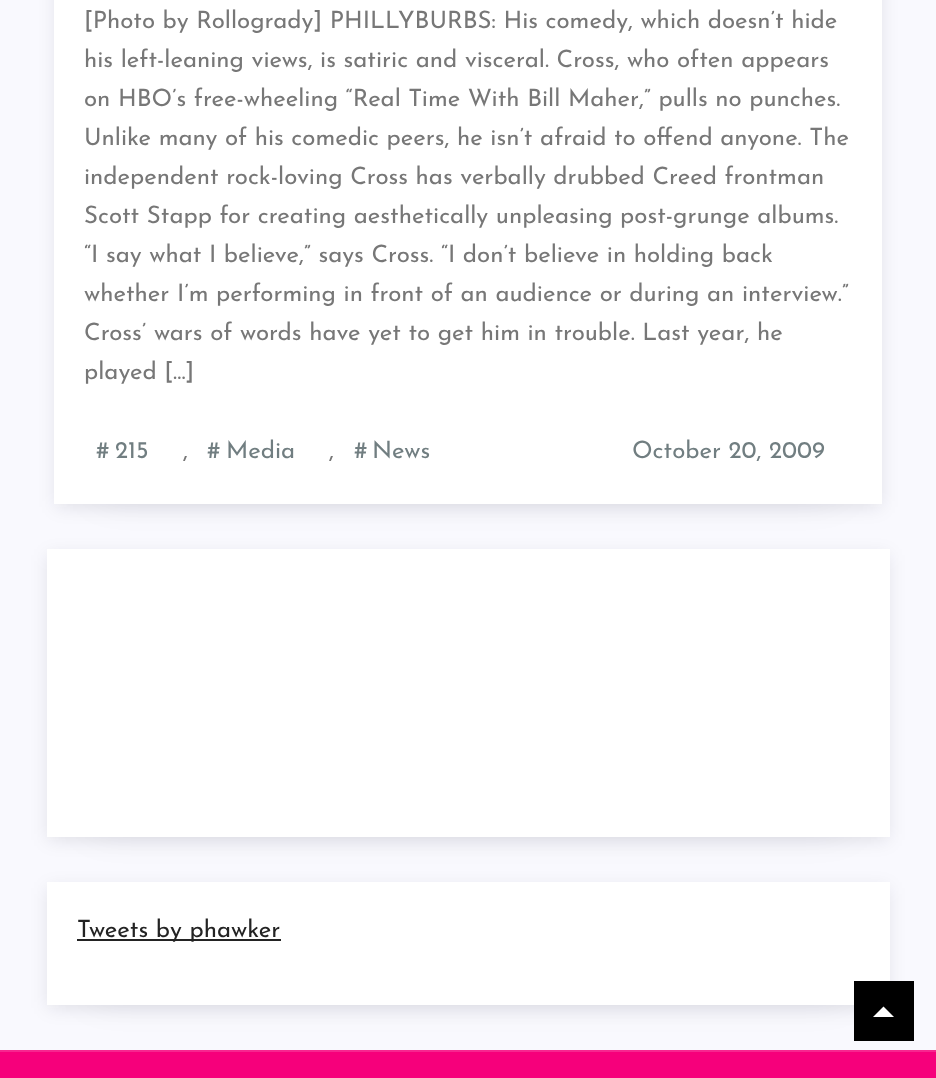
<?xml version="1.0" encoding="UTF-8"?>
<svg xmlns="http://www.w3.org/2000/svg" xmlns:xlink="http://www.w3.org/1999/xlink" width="936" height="1078">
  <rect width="100%" height="100%" fill="#f9f9fe" />
  <rect x="99" y="-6" width="738" height="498" fill="#070a19" fill-opacity="0.1" filter="blur(20px)" />
  <rect x="56" y="-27" width="825" height="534" fill="#070a19" fill-opacity="0.1" filter="blur(9px)" />
  <rect x="54" width="828" height="504" fill="#ffffff" />
  <rect x="92" y="627" width="753" height="198" fill="#070a19" fill-opacity="0.1" filter="blur(20px)" />
  <rect x="48" y="555" width="840" height="285" fill="#070a19" fill-opacity="0.1" filter="blur(9px)" />
  <rect x="47" y="549" width="843" height="288" fill="#ffffff" />
  <rect y="1052" width="936" height="26" fill="#f6007b" />
  <rect y="1050" width="936" height="2" fill="#f7268f" />
  <rect x="92" y="960" width="753" height="33" fill="#070a19" fill-opacity="0.1" filter="blur(20px)" />
  <rect x="48" y="888" width="840" height="120" fill="#070a19" fill-opacity="0.1" filter="blur(9px)" />
  <rect x="47" y="882" width="843" height="123" fill="#ffffff" />
  <rect x="77" y="939" width="204" height="2" fill="#232323" />
  <rect x="854" y="981" width="60" height="60" fill="#000000" />
  <path d="M 894 1017 h -21 l 10.5 -10.5 z" fill="#ffffff" />
  <text x="84" y="28" style="font-family: Josefin Sans; font-size: 24px; fill: #777777">[Photo by Rollogrady] PHILLYBURBS: His comedy, which doesn’t hide</text>
  <text x="84" y="67" style="font-family: Josefin Sans; font-size: 24px; fill: #777777">his left-leaning views, is satiric and visceral. Cross, who often appears</text>
  <text x="84" y="106" style="font-family: Josefin Sans; font-size: 24px; fill: #777777">on HBO’s free-wheeling “Real Time With Bill Maher,” pulls no punches.</text>
  <text x="84" y="145" style="font-family: Josefin Sans; font-size: 24px; fill: #777777">Unlike many of his comedic peers, he isn’t afraid to offend anyone. The</text>
  <text x="84" y="184" style="font-family: Josefin Sans; font-size: 24px; fill: #777777">independent rock-loving Cross has verbally drubbed Creed frontman</text>
  <text x="84" y="223" style="font-family: Josefin Sans; font-size: 24px; fill: #777777">Scott Stapp for creating aesthetically unpleasing post-grunge albums.</text>
  <text x="84" y="262" style="font-family: Josefin Sans; font-size: 24px; fill: #777777">“I say what I believe,” says Cross. “I don’t believe in holding back</text>
  <text x="84" y="301" style="font-family: Josefin Sans; font-size: 24px; fill: #777777">whether I’m performing in front of an audience or during an interview.”</text>
  <text x="84" y="340" style="font-family: Josefin Sans; font-size: 24px; fill: #777777">Cross’ wars of words have yet to get him in trouble. Last year, he</text>
  <text x="84" y="379" style="font-family: Josefin Sans; font-size: 24px; fill: #777777">played […]</text>
  <text x="96" y="458" style="font-family: Josefin Sans; font-size: 24px; fill: #717e81">#</text>
  <text x="115" y="458" style="font-family: Josefin Sans; font-size: 24px; fill: #717e81">215</text>
  <text x="183" y="458" style="font-family: Josefin Sans; font-size: 24px; fill: #777777">,</text>
  <text x="207" y="458" style="font-family: Josefin Sans; font-size: 24px; fill: #717e81">#</text>
  <text x="226" y="458" style="font-family: Josefin Sans; font-size: 24px; fill: #717e81">Media</text>
  <text x="329" y="458" style="font-family: Josefin Sans; font-size: 24px; fill: #777777">,</text>
  <text x="354" y="458" style="font-family: Josefin Sans; font-size: 24px; fill: #717e81">#</text>
  <text x="372" y="458" style="font-family: Josefin Sans; font-size: 24px; fill: #717e81">News</text>
  <text x="632" y="458" style="font-family: Josefin Sans; font-size: 24px; fill: #717e81">October 20, 2009</text>
  <text x="77" y="937" style="font-family: Josefin Sans; font-size: 24px; fill: #232323">Tweets by phawker</text>
</svg>
